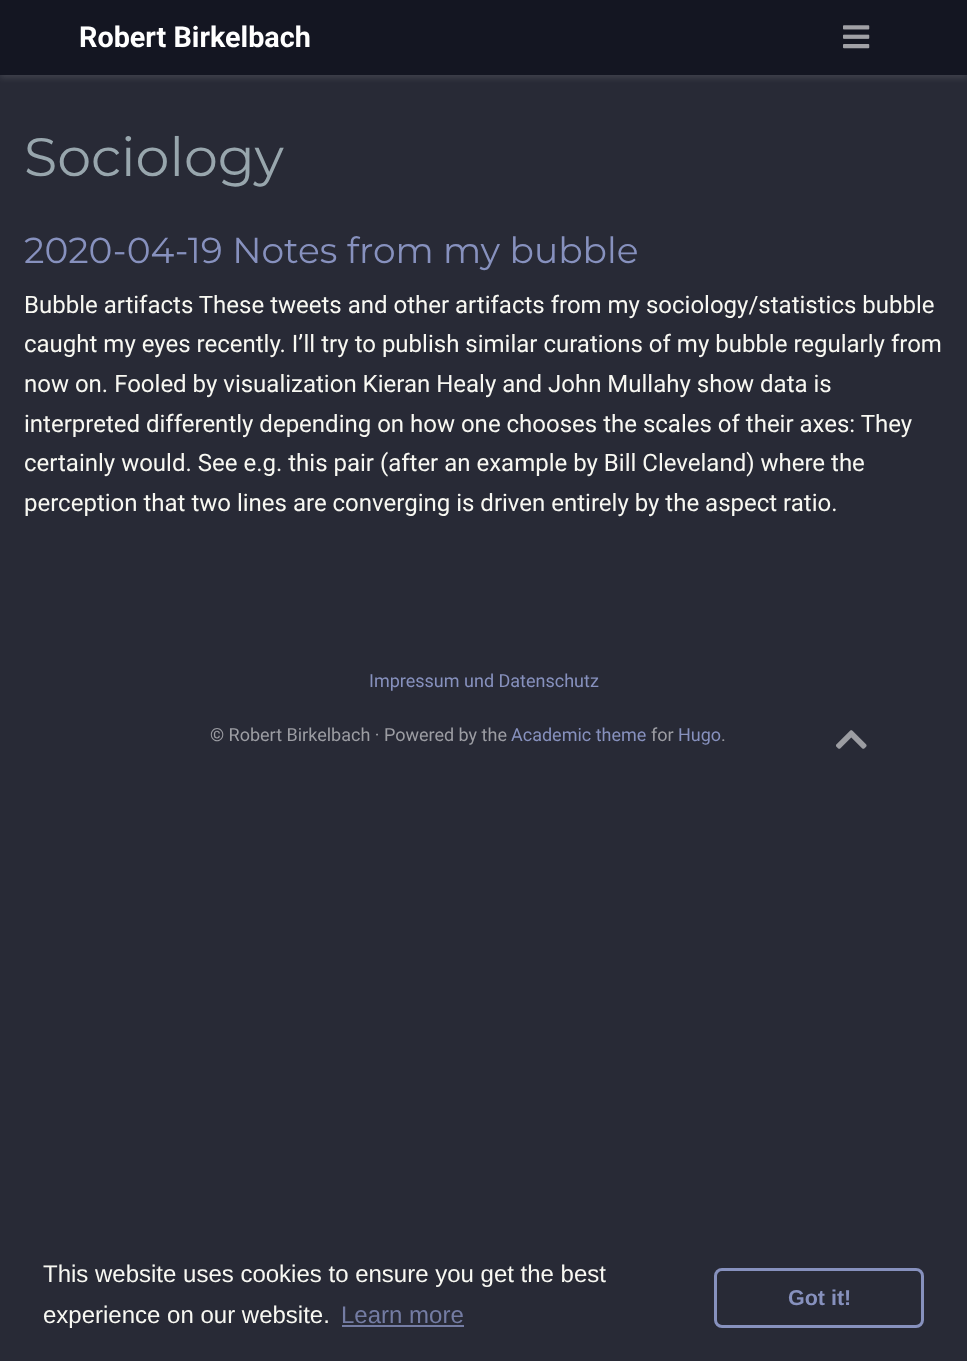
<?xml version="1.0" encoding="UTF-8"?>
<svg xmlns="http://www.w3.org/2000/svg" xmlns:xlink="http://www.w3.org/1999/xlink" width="967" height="1361">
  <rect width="100%" height="100%" fill="#282a36" />
  <rect y="3" width="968" height="75" fill="#ffffff" fill-opacity="0.11" filter="blur(3px)" />
  <rect width="967" height="75" fill="#141622" />
  <image x="843" y="25" width="27" height="24" xlink:href="image1.png" />
  <image x="836" y="730" width="31" height="19" xlink:href="image2.png" />
  <rect x="342" y="1325" width="122" height="2" fill="#747ca3" />
  <rect x="715.5" y="1269.5" width="207" height="57" rx="6.5" fill="none" stroke="#8791be" stroke-width="3" />
  <text x="79" y="47" style="font-family: Roboto; font-size: 28.75px; font-weight: bold; fill: #ffffff">Robert Birkelbach</text>
  <text x="24" y="176" style="font-family: Montserrat; font-size: 54px; fill: #98a6ad">Sociology</text>
  <text x="24" y="263" style="font-family: Montserrat; font-size: 36px; fill: #8791be">2020-04-19 Notes from my bubble</text>
  <text x="24" y="313" style="font-family: Roboto; font-size: 24px; fill: #f8f8f2">Bubble artifacts These tweets and other artifacts from my sociology/statistics bubble</text>
  <text x="24" y="352" style="font-family: Roboto; font-size: 24px; fill: #f8f8f2">caught my eyes recently. I’ll try to publish similar curations of my bubble regularly from</text>
  <text x="24" y="392" style="font-family: Roboto; font-size: 24px; fill: #f8f8f2">now on. Fooled by visualization Kieran Healy and John Mullahy show data is</text>
  <text x="24" y="432" style="font-family: Roboto; font-size: 24px; fill: #f8f8f2">interpreted differently depending on how one chooses the scales of their axes: They</text>
  <text x="24" y="471" style="font-family: Roboto; font-size: 24px; fill: #f8f8f2">certainly would. See e.g. this pair (after an example by Bill Cleveland) where the</text>
  <text x="24" y="511" style="font-family: Roboto; font-size: 24px; fill: #f8f8f2">perception that two lines are converging is driven entirely by the aspect ratio.</text>
  <text x="369" y="687" style="font-family: Roboto; font-size: 18px; fill: #8791be">Impressum und Datenschutz</text>
  <text x="210" y="741" style="font-family: Roboto; font-size: 18px; fill: #9c9da3">© Robert Birkelbach · Powered by the</text>
  <text x="511" y="741" style="font-family: Roboto; font-size: 18px; fill: #8791be">Academic theme</text>
  <text x="651" y="741" style="font-family: Roboto; font-size: 18px; fill: #9c9da3">for</text>
  <text x="678" y="741" style="font-family: Roboto; font-size: 18px; fill: #8791be">Hugo</text>
  <text x="721" y="741" style="font-family: Roboto; font-size: 18px; fill: #9c9da3">.</text>
  <text x="43" y="1282" style="font-family: Liberation Sans; font-size: 24px; fill: #f8f8f2">This website uses cookies to ensure you get the best</text>
  <text x="43" y="1323" style="font-family: Liberation Sans; font-size: 24px; fill: #f8f8f2">experience on our website.</text>
  <text x="341" y="1323" style="font-family: Liberation Sans; font-size: 24px; fill: #747ca3">Learn more</text>
  <text x="788" y="1305" style="font-family: Liberation Sans; font-size: 21.5px; font-weight: bold; fill: #8791be">Got it!</text>
</svg>
